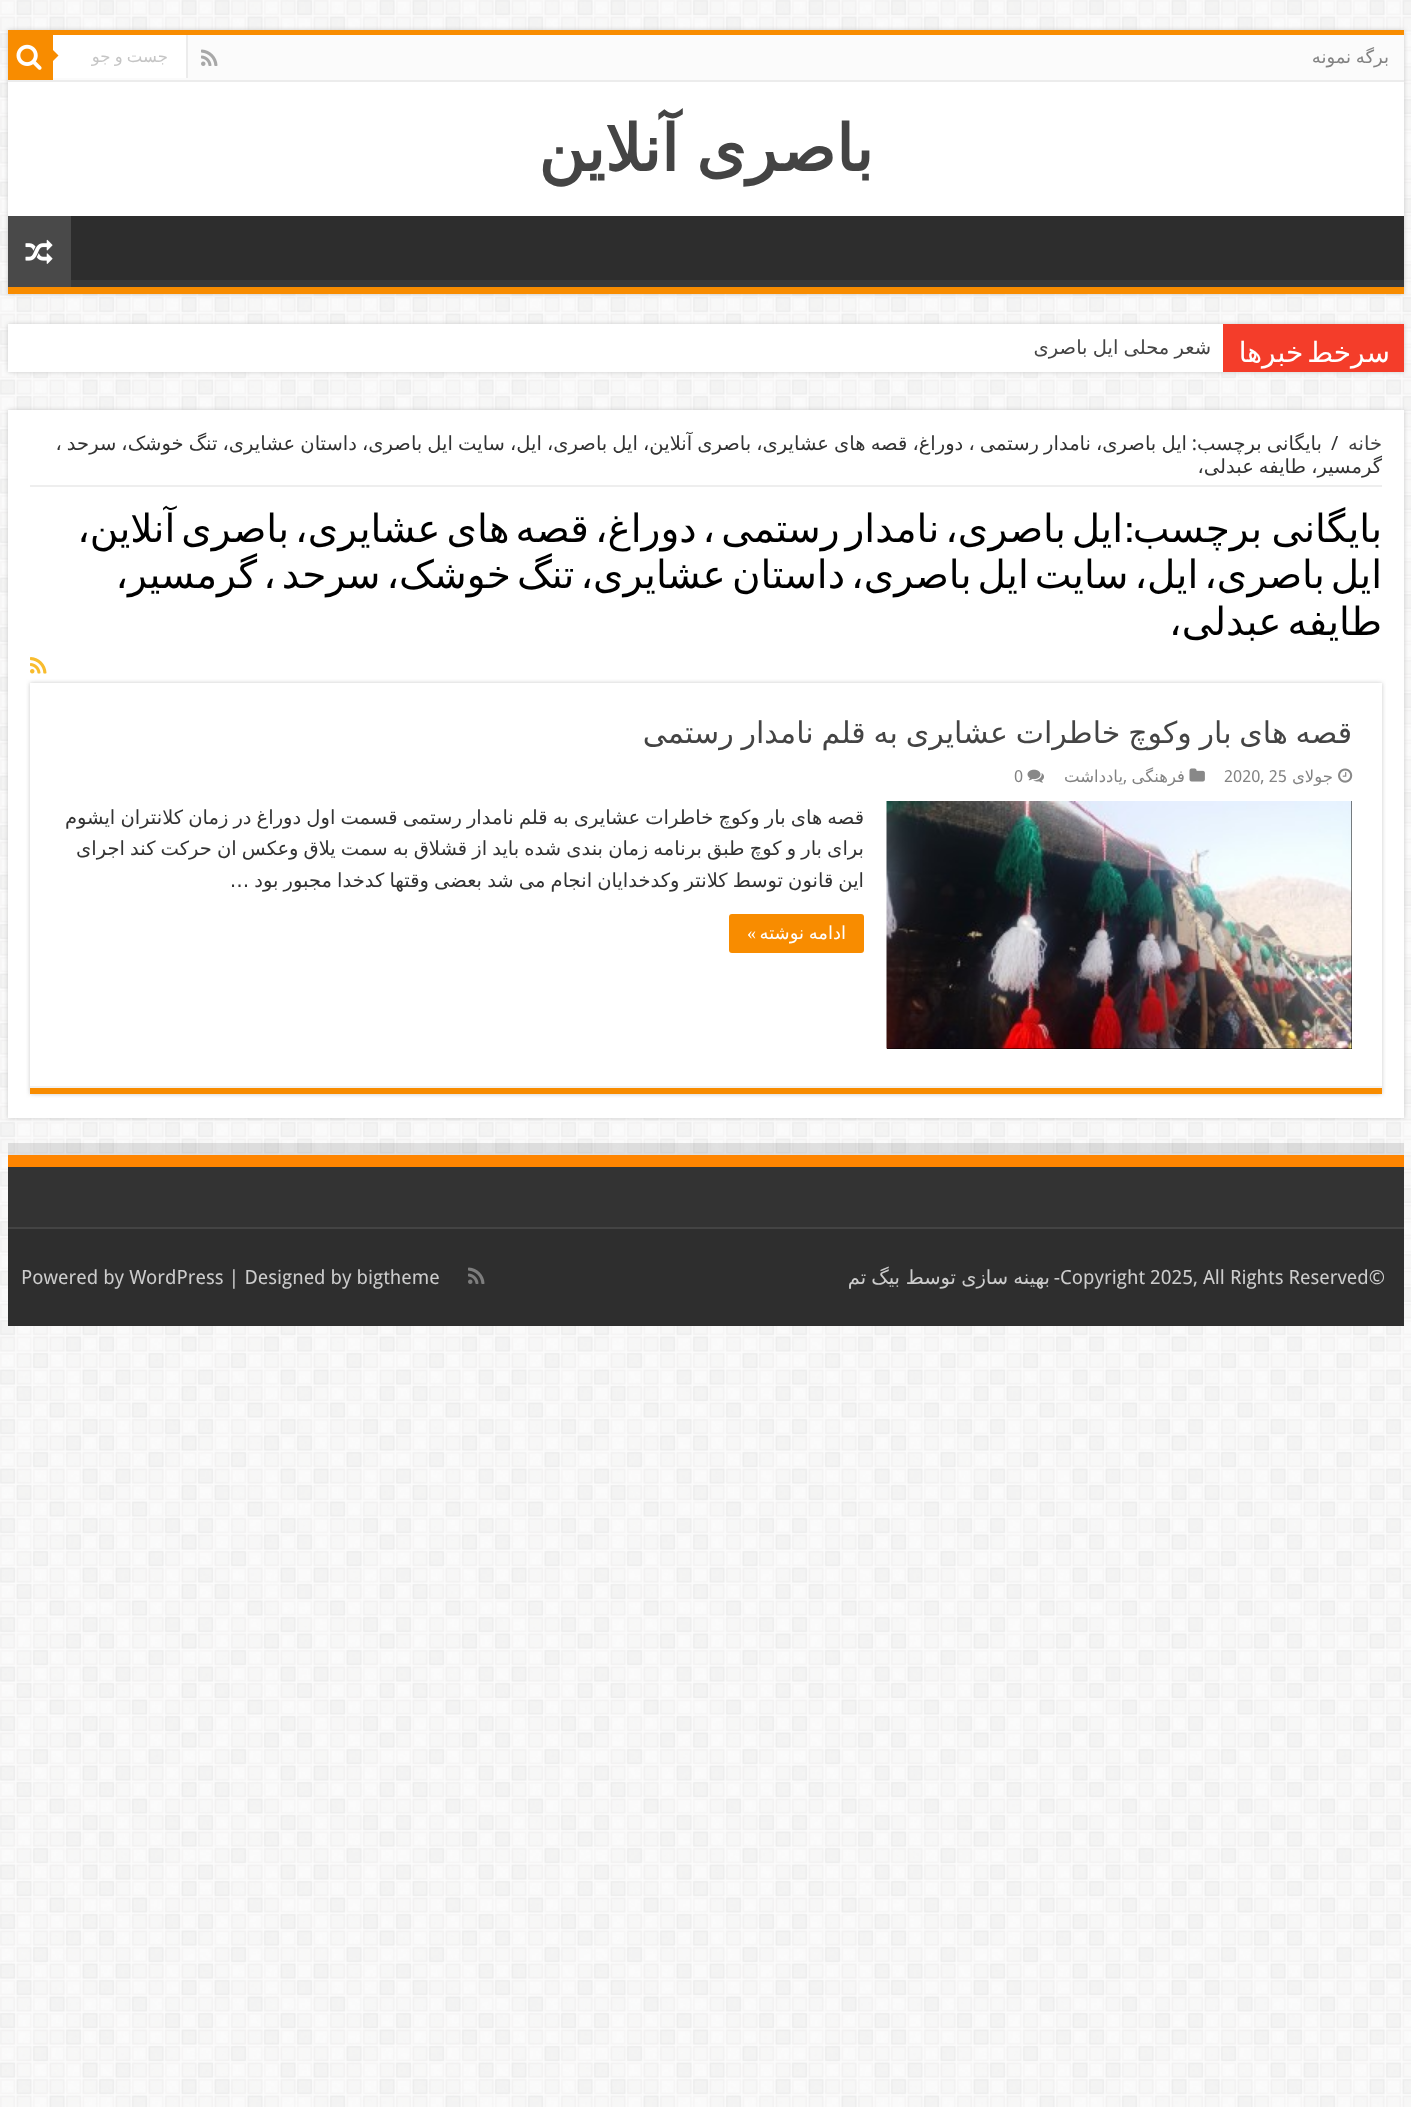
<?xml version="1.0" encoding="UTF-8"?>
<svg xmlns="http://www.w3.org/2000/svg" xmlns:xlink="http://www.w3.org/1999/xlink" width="1411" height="2107">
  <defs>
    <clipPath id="clip1"><rect x="8" y="216" width="1396" height="71" /></clipPath>
    <clipPath id="clip2"><rect x="71" y="48" width="97" height="20" /></clipPath>
    <clipPath id="clip3"><rect x="30" y="501" width="1352" height="182" /></clipPath>
  </defs>
  <rect width="100%" height="100%" fill="#ffffff" />
  <image x="0" y="0" width="1411" height="2107" xlink:href="image1.png" />
  <rect x="8" y="30" width="1396" height="264" fill="#cacaca" filter="blur(2px)" />
  <rect x="8" y="82" width="1396" height="134" fill="#ffffff" />
  <rect x="8" y="30" width="1396" height="5" fill="#f88c00" />
  <rect x="53" y="35" width="1351" height="45" fill="#fbfbfb" />
  <rect x="8" y="80" width="1396" height="2" fill="#ececec" />
  <image x="201" y="49" width="17" height="17" xlink:href="image2.png" />
  <rect x="53" y="35" width="133" height="43" fill="#ffffff" />
  <rect x="186" y="35" width="2" height="43" fill="#ececec" />
  <rect x="8" y="35" width="45" height="45" fill="#f88c00" />
  <image x="16" y="44" width="26" height="26" xlink:href="image3.png" />
  <path d="M 52.5 61.5 v -12 l 6 6 z" fill="#f88c00" />
  <rect x="71" y="216" width="1333" height="64" fill="#2d2d2d" />
  <g clip-path="url(#clip1)">
    <path d="M -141 68 h 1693 v 367 h -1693 z m 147 139 h 1396 c 1 0 2 1 2 1 v 71 c 0 1 -1 1 -2 1 h -1396 c -1 0 -2 0 -2 -1 v -71 c 0 0 1 -1 2 -1 z" fill="#393939" fill-rule="evenodd" />
  </g>
  <rect x="8" y="287" width="1396" height="7" fill="#f88c00" />
  <rect x="8" y="216" width="63" height="71" fill="#494949" />
  <image x="25" y="239" width="28" height="25" xlink:href="image4.png" />
  <rect x="8" y="324" width="1396" height="48" fill="#cacaca" filter="blur(2px)" />
  <rect x="8" y="324" width="1215" height="48" fill="#ffffff" />
  <rect x="1223" y="324" width="181" height="48" fill="#f43d2a" />
  <rect x="8" y="410" width="1396" height="708" fill="#cacaca" filter="blur(2px)" />
  <rect x="8" y="410" width="1396" height="708" fill="#ffffff" />
  <rect x="30" y="485" width="1352" height="2" fill="#eeeeee" />
  <image x="30" y="657" width="17" height="17" xlink:href="image5.png" />
  <rect x="30" y="683" width="1352" height="411" fill="#cacaca" filter="blur(2px)" />
  <rect x="30" y="683" width="1352" height="403" fill="#ffffff" />
  <rect x="30" y="1088" width="1352" height="6" fill="#f88c00" />
  <rect x="30" y="1086" width="1352" height="2" fill="#f2f2f2" />
  <image x="1338" y="768" width="15" height="15" xlink:href="image6.png" />
  <image x="1189" y="768" width="16" height="14" xlink:href="image7.png" />
  <image x="1027" y="769" width="17" height="14" xlink:href="image8.png" />
  <rect x="887" y="801" width="465" height="248" fill="#000000" />
  <image x="886" y="801" width="466" height="248" xlink:href="image9.png" />
  <rect x="729" y="914" width="135" height="39" rx="3" fill="#f88c00" />
  <rect x="8" y="1143" width="1396" height="12" fill="#000000" fill-opacity="0.1" />
  <rect x="8" y="1167" width="1396" height="60" fill="#333333" />
  <rect x="8" y="1155" width="1396" height="12" fill="#ff8500" />
  <rect x="8" y="1229" width="1396" height="97" fill="#2e2e2e" />
  <rect x="8" y="1227" width="1396" height="2" fill="#444444" />
  <image x="468" y="1267" width="17" height="17" xlink:href="image10.png" />
  <text x="1389" y="63" word-spacing="-1" style="font-family: DejaVu Sans; font-size: 18px; direction: rtl; fill: #838383">برگه نمونه</text>
  <g clip-path="url(#clip2)">
    <text x="168" y="62" word-spacing="-1" style="font-family: DejaVu Sans; font-size: 16.5px; direction: rtl; fill: #c5c5c5">جست و جو</text>
  </g>
  <text x="873" y="171" word-spacing="-3" style="font-family: DejaVu Sans; font-size: 64px; font-weight: bold; direction: rtl; fill: #444444">باصری آنلاین</text>
  <text x="1390" y="362" word-spacing="-5" style="font-family: DejaVu Sans; font-size: 28px; direction: rtl; fill: #ffffff">سرخط خبرها</text>
  <text x="1211" y="354" word-spacing="-1" style="font-family: DejaVu Sans; font-size: 19.5px; direction: rtl; fill: #444444">شعر محلی ایل باصری</text>
  <text x="1382" y="450" style="font-family: DejaVu Sans; font-size: 19.5px; direction: rtl; fill: #444444">خانه</text>
  <text x="1331" y="450" style="font-family: Droid Sans; font-size: 19.5px; fill: #333333">/</text>
  <text x="1322" y="450" word-spacing="-1.1" style="font-family: DejaVu Sans; font-size: 19.5px; direction: rtl; fill: #333333">بایگانی برچسب</text>
  <text x="1187" y="450" word-spacing="-1.1" style="font-family: DejaVu Sans; font-size: 19.5px; direction: rtl; fill: #333333">ایل باصری، نامدار رستمی ، دوراغ، قصه های عشایری، باصری آنلاین، ایل باصری، ایل، سایت ایل باصری، داستان عشایری، تنگ خوشک، سرحد ،</text>
  <text x="1197" y="450" style="font-family: Droid Sans; font-size: 19.5px; direction: rtl; fill: #333333">:</text>
  <text x="1382" y="473" word-spacing="-1.1" style="font-family: DejaVu Sans; font-size: 19.5px; direction: rtl; fill: #333333">گرمسیر، طایفه عبدلی،</text>
  <text x="1382" y="542" word-spacing="-3" style="font-family: DejaVu Sans; font-size: 39px; direction: rtl; fill: #000000">بایگانی برچسب</text>
  <text x="1133" y="542" style="font-family: Bebas Neue; font-size: 39px; font-weight: bold; direction: rtl; fill: #000000">:</text>
  <text x="1123" y="542" word-spacing="-6.4" style="font-family: DejaVu Sans; font-size: 39px; direction: rtl; fill: #000000">ایل باصری، نامدار رستمی ، دوراغ، قصه های عشایری، باصری آنلاین،</text>
  <g clip-path="url(#clip3)">
    <text x="1382" y="588" word-spacing="-6.4" style="font-family: DejaVu Sans; font-size: 39px; direction: rtl; fill: #000000">ایل باصری، ایل، سایت ایل باصری، داستان عشایری، تنگ خوشک، سرحد ، گرمسیر،</text>
    <text x="1382" y="635" word-spacing="-6.4" style="font-family: DejaVu Sans; font-size: 39px; direction: rtl; fill: #000000">طایفه عبدلی،</text>
  </g>
  <text x="1352" y="743" word-spacing="-1.75" style="font-family: DejaVu Sans; font-size: 30px; direction: rtl; fill: #444444">قصه های بار وکوچ خاطرات عشایری به قلم نامدار رستمی</text>
  <text x="1333" y="782" style="font-family: DejaVu Sans; font-size: 16.5px; direction: rtl; fill: #838383">جولای</text>
  <text x="1224" y="782" style="font-family: Droid Sans; font-size: 16.5px; fill: #838383">2020, 25</text>
  <text x="1185" y="782" style="font-family: DejaVu Sans; font-size: 16.5px; direction: rtl; fill: #838383">فرهنگی</text>
  <text x="1123" y="782" style="font-family: Droid Sans; font-size: 16.5px; fill: #838383">,</text>
  <text x="1123" y="782" style="font-family: DejaVu Sans; font-size: 16.5px; direction: rtl; fill: #838383">یادداشت</text>
  <text x="1014" y="782" style="font-family: Droid Sans; font-size: 16.5px; fill: #838383">0</text>
  <text x="864" y="824" word-spacing="-1.1" style="font-family: DejaVu Sans; font-size: 19.5px; direction: rtl; fill: #333333">قصه های بار وکوچ خاطرات عشایری به قلم نامدار رستمی قسمت اول دوراغ در زمان کلانتران ایشوم</text>
  <text x="864" y="855" word-spacing="-1.1" style="font-family: DejaVu Sans; font-size: 19.5px; direction: rtl; fill: #333333">برای بار و کوچ طبق برنامه زمان بندی شده باید از قشلاق به سمت یلاق وعکس ان حرکت کند اجرای</text>
  <text x="864" y="887" word-spacing="-1.1" style="font-family: DejaVu Sans; font-size: 19.5px; direction: rtl; fill: #333333">این قانون توسط کلانتر وکدخدایان انجام می شد بعضی وقتها کدخدا مجبور بود …</text>
  <text x="846" y="939" word-spacing="-1" style="font-family: DejaVu Sans; font-size: 18px; direction: rtl; fill: #ffffff">ادامه نوشته</text>
  <text x="756" y="939" style="font-family: Liberation Serif; font-size: 18px; direction: rtl; fill: #ffffff">»</text>
  <text x="1060" y="1284" style="font-family: Droid Sans; font-size: 19.5px; fill: #cccccc">Copyright 2025, All Rights Reserved©</text>
  <text x="1060" y="1284" style="font-family: Droid Sans; font-size: 19.5px; direction: rtl; fill: #cccccc">-</text>
  <text x="1050" y="1284" word-spacing="-1" style="font-family: DejaVu Sans; font-size: 19.5px; direction: rtl; fill: #cccccc">بهینه سازی توسط</text>
  <text x="900" y="1284" word-spacing="-1.1" style="font-family: DejaVu Sans; font-size: 19.5px; direction: rtl; fill: #cccccc">بیگ تم</text>
  <text x="21" y="1284" style="font-family: Droid Sans; font-size: 19.5px; fill: #cccccc">Powered by WordPress | Designed by bigtheme</text>
</svg>
